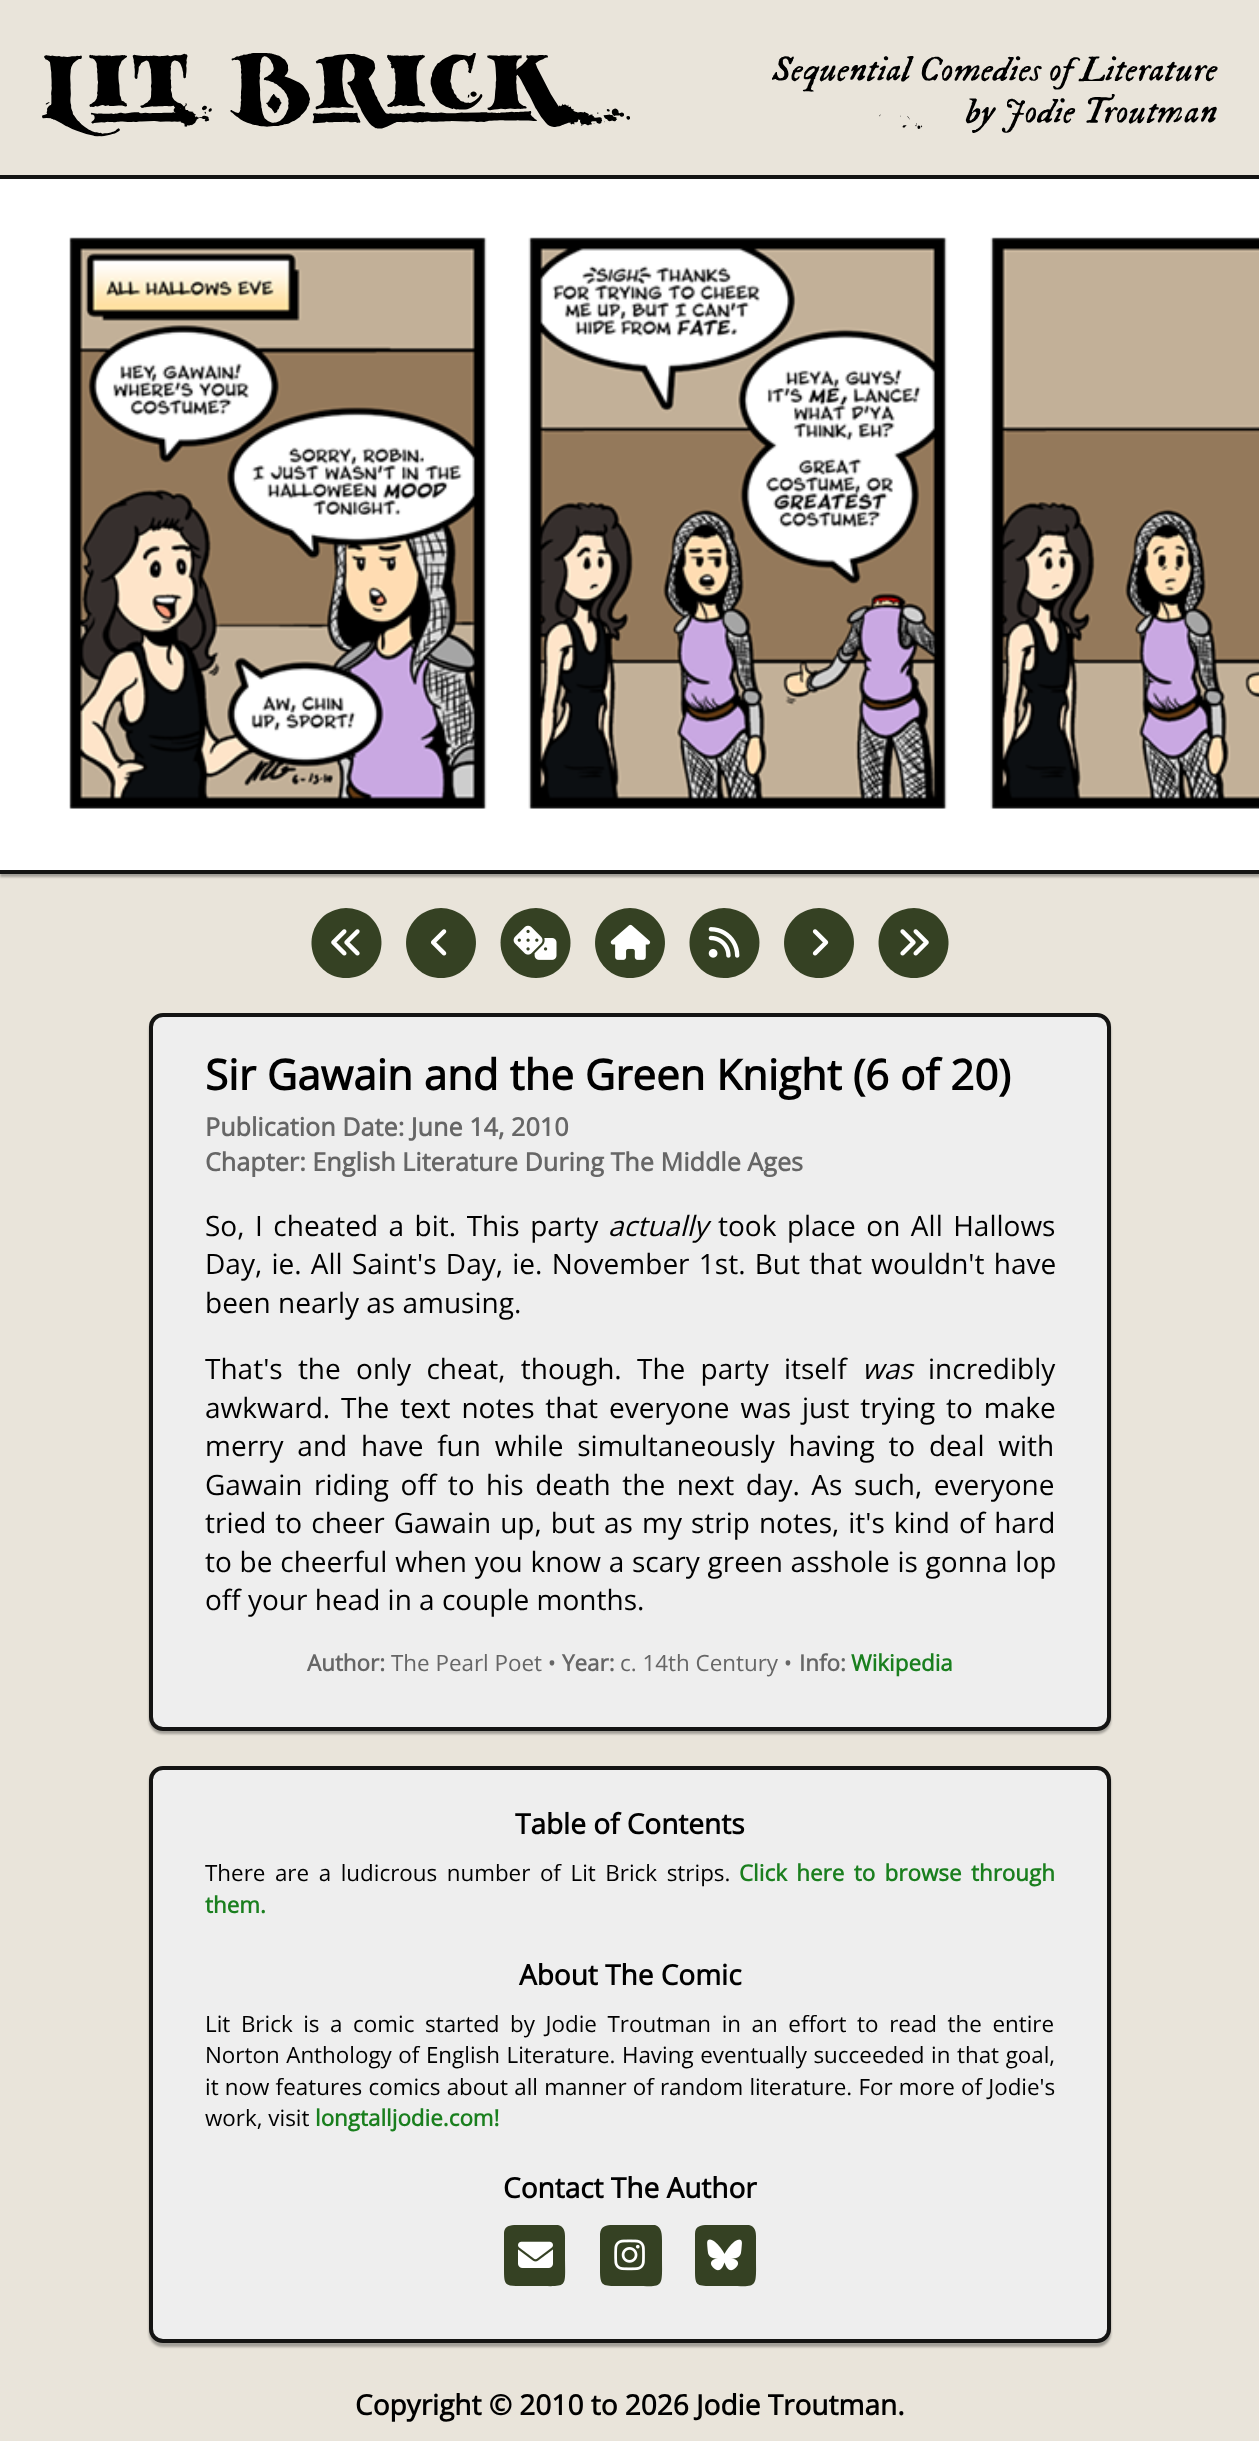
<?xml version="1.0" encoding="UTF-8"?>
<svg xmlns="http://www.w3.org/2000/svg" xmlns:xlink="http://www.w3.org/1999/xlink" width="1259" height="2441">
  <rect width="100%" height="100%" fill="#e9e4da" />
  <image x="42" y="53" width="588" height="84" xlink:href="image1.png" />
  <image x="772" y="56" width="446" height="77" xlink:href="image2.png" />
  <rect y="179" width="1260" height="698" fill="#000000" fill-opacity="0.3" filter="blur(1px)" />
  <rect y="179" width="1259" height="691" fill="#ffffff" />
  <rect y="175" width="1259" height="4" fill="#141413" />
  <rect y="870" width="1259" height="4" fill="#141413" />
  <image x="69" y="237" width="1190" height="572" xlink:href="image3.png" />
  <path d="M 346 978 c 34 0 48 -42 22 -63 c -6 -4 -14 -7 -22 -7 c -7 0 -15 3 -21 7 c -26 21 -12 63 21 63 z" fill="#354123" />
  <image x="331" y="929" width="29" height="27" xlink:href="image4.png" />
  <path d="M 441 978 c 33 0 48 -42 21 -63 c -6 -4 -13 -7 -21 -7 c -8 0 -15 3 -21 7 c -27 21 -12 63 21 63 z" fill="#354123" />
  <image x="431" y="929" width="16" height="27" xlink:href="image5.png" />
  <path d="M 536 978 c 33 0 47 -42 21 -63 c -6 -4 -14 -7 -21 -7 c -8 0 -16 3 -22 7 c -26 21 -12 63 22 63 z" fill="#354123" />
  <image x="513" y="925" width="44" height="35" xlink:href="image6.png" />
  <path d="M 630 978 c 33 0 48 -42 21 -63 c -6 -4 -13 -7 -21 -7 c -8 0 -15 3 -21 7 c -27 21 -12 63 21 63 z" fill="#354123" />
  <image x="610" y="924" width="41" height="36" xlink:href="image7.png" />
  <path d="M 724 978 c 34 0 48 -42 22 -63 c -6 -4 -14 -7 -22 -7 c -7 0 -15 3 -21 7 c -26 21 -12 63 21 63 z" fill="#354123" />
  <image x="708" y="927" width="32" height="31" xlink:href="image8.png" />
  <path d="M 819 978 c 33 0 48 -42 21 -63 c -6 -4 -13 -7 -21 -7 c -8 0 -15 3 -21 7 c -27 21 -12 63 21 63 z" fill="#354123" />
  <image x="812" y="929" width="17" height="27" xlink:href="image9.png" />
  <path d="M 914 978 c 33 0 47 -42 21 -63 c -6 -4 -14 -7 -21 -7 c -8 0 -16 3 -22 7 c -26 21 -12 63 22 63 z" fill="#354123" />
  <image x="900" y="929" width="29" height="27" xlink:href="image10.png" />
  <rect x="149" y="1017" width="962" height="717" rx="14" fill="#000000" fill-opacity="0.3" filter="blur(1px)" />
  <rect x="151" y="1015" width="958" height="714" rx="12" fill="#eeeeee" stroke="#141413" stroke-width="4" />
  <rect x="149" y="1769" width="962" height="578" rx="14" fill="#000000" fill-opacity="0.3" filter="blur(1px)" />
  <rect x="151" y="1768" width="958" height="573" rx="12" fill="#eeeeee" stroke="#141413" stroke-width="4" />
  <path d="M 504 2234 c 0 -10 9 -9 16 -9 h 38 c 8 2 7 10 7 16 v 15 c 0 34 4 30 -30 30 h -15 c -15 0 -16 -1 -16 -16 z" fill="#354123" />
  <image x="518" y="2241" width="35" height="27" xlink:href="image11.png" />
  <path d="M 600 2234 c 1 -10 9 -9 16 -9 h 39 c 7 2 7 10 7 16 v 15 c 0 34 3 30 -31 30 h -15 c -14 0 -16 -1 -16 -16 z" fill="#354123" />
  <image x="614" y="2239" width="31" height="32" xlink:href="image12.png" />
  <path d="M 695 2234 c 0 -10 9 -9 16 -9 h 38 c 8 2 7 10 7 16 v 15 c 0 34 3 30 -31 30 h -14 c -15 0 -16 -1 -16 -16 z" fill="#354123" />
  <image x="707" y="2239" width="35" height="32" xlink:href="image13.png" />
  <text x="205" y="1090" style="font-family: Open Sans; font-size: 42px; font-weight: bold; fill: #000000">Sir Gawain and the Green Knight (6 of 20)</text>
  <text x="205" y="1136" style="font-family: Open Sans; font-size: 25.2px; font-weight: bold; fill: #666666">Publication Date: June 14, 2010</text>
  <text x="205" y="1171" style="font-family: Open Sans; font-size: 25.2px; font-weight: bold; fill: #666666">Chapter: English Literature During The Middle Ages</text>
  <text x="205" y="1236" word-spacing="3.25" style="font-family: Open Sans; font-size: 28px; fill: #000000">So, I cheated a bit. This party</text>
  <text x="608" y="1236" style="font-family: Open Sans; font-size: 28px; font-style: italic; fill: #000000">actually</text>
  <text x="718" y="1236" word-spacing="3.25" style="font-family: Open Sans; font-size: 28px; fill: #000000">took place on All Hallows</text>
  <text x="205" y="1274" word-spacing="2" style="font-family: Open Sans; font-size: 28px; fill: #000000">Day, ie. All Saint's Day, ie. November 1st. But that wouldn't have</text>
  <text x="205" y="1313" style="font-family: Open Sans; font-size: 28px; fill: #000000">been nearly as amusing.</text>
  <text x="205" y="1379" word-spacing="8" style="font-family: Open Sans; font-size: 28px; fill: #000000">That's the only cheat, though. The party itself</text>
  <text x="862" y="1379" style="font-family: Open Sans; font-size: 28px; font-style: italic; fill: #000000">was</text>
  <text x="928" y="1379" style="font-family: Open Sans; font-size: 28px; fill: #000000">incredibly</text>
  <text x="205" y="1418" word-spacing="3.6" style="font-family: Open Sans; font-size: 28px; fill: #000000">awkward. The text notes that everyone was just trying to make</text>
  <text x="205" y="1456" word-spacing="6.5" style="font-family: Open Sans; font-size: 28px; fill: #000000">merry and have fun while simultaneously having to deal with</text>
  <text x="205" y="1495" word-spacing="4.25" style="font-family: Open Sans; font-size: 28px; fill: #000000">Gawain riding off to his death the next day. As such, everyone</text>
  <text x="205" y="1533" word-spacing="1.75" style="font-family: Open Sans; font-size: 28px; fill: #000000">tried to cheer Gawain up, but as my strip notes, it's kind of hard</text>
  <text x="205" y="1572" word-spacing="0.5" style="font-family: Open Sans; font-size: 28px; fill: #000000">to be cheerful when you know a scary green asshole is gonna lop</text>
  <text x="205" y="1610" style="font-family: Open Sans; font-size: 28px; fill: #000000">off your head in a couple months.</text>
  <text x="307" y="1671" style="font-family: Open Sans; font-size: 22.4px; font-weight: bold; fill: #666666">Author:</text>
  <text x="391" y="1671" style="font-family: Open Sans; font-size: 22.4px; fill: #666666">The Pearl Poet •</text>
  <text x="562" y="1671" style="font-family: Open Sans; font-size: 22.4px; font-weight: bold; fill: #666666">Year:</text>
  <text x="620" y="1671" style="font-family: Open Sans; font-size: 22.4px; fill: #666666">c. 14th Century •</text>
  <text x="799" y="1671" style="font-family: Open Sans; font-size: 22.4px; font-weight: bold; fill: #666666">Info:</text>
  <text x="851" y="1671" style="font-family: Open Sans; font-size: 22.4px; font-weight: bold; fill: #1a7f1e">Wikipedia</text>
  <text x="515" y="1834" style="font-family: Open Sans; font-size: 28px; font-weight: bold; fill: #000000">Table of Contents</text>
  <text x="205" y="1881" word-spacing="3.75" style="font-family: Open Sans; font-size: 22.4px; fill: #000000">There are a ludicrous number of Lit Brick strips.</text>
  <text x="739" y="1881" word-spacing="3.6" style="font-family: Open Sans; font-size: 22.4px; font-weight: bold; fill: #1a7f1e">Click here to browse through</text>
  <text x="205" y="1913" style="font-family: Open Sans; font-size: 22.4px; font-weight: bold; fill: #1a7f1e">them.</text>
  <text x="519" y="1985" style="font-family: Open Sans; font-size: 28px; font-weight: bold; fill: #000000">About The Comic</text>
  <text x="205" y="2032" word-spacing="4.75" style="font-family: Open Sans; font-size: 22.4px; fill: #000000">Lit Brick is a comic started by Jodie Troutman in an effort to read the entire</text>
  <text x="205" y="2063" word-spacing="0.75" style="font-family: Open Sans; font-size: 22.4px; fill: #000000">Norton Anthology of English Literature. Having eventually succeeded in that goal,</text>
  <text x="205" y="2095" word-spacing="0.4" style="font-family: Open Sans; font-size: 22.4px; fill: #000000">it now features comics about all manner of random literature. For more of Jodie's</text>
  <text x="205" y="2126" style="font-family: Open Sans; font-size: 22.4px; fill: #000000">work, visit</text>
  <text x="315" y="2126" style="font-family: Open Sans; font-size: 22.4px; font-weight: bold; fill: #1a7f1e">longtalljodie.com!</text>
  <text x="503" y="2198" style="font-family: Open Sans; font-size: 28px; font-weight: bold; fill: #000000">Contact The Author</text>
  <text x="355" y="2415" style="font-family: Open Sans; font-size: 28px; font-weight: bold; fill: #000000">Copyright © 2010 to 2026 Jodie Troutman.</text>
</svg>
